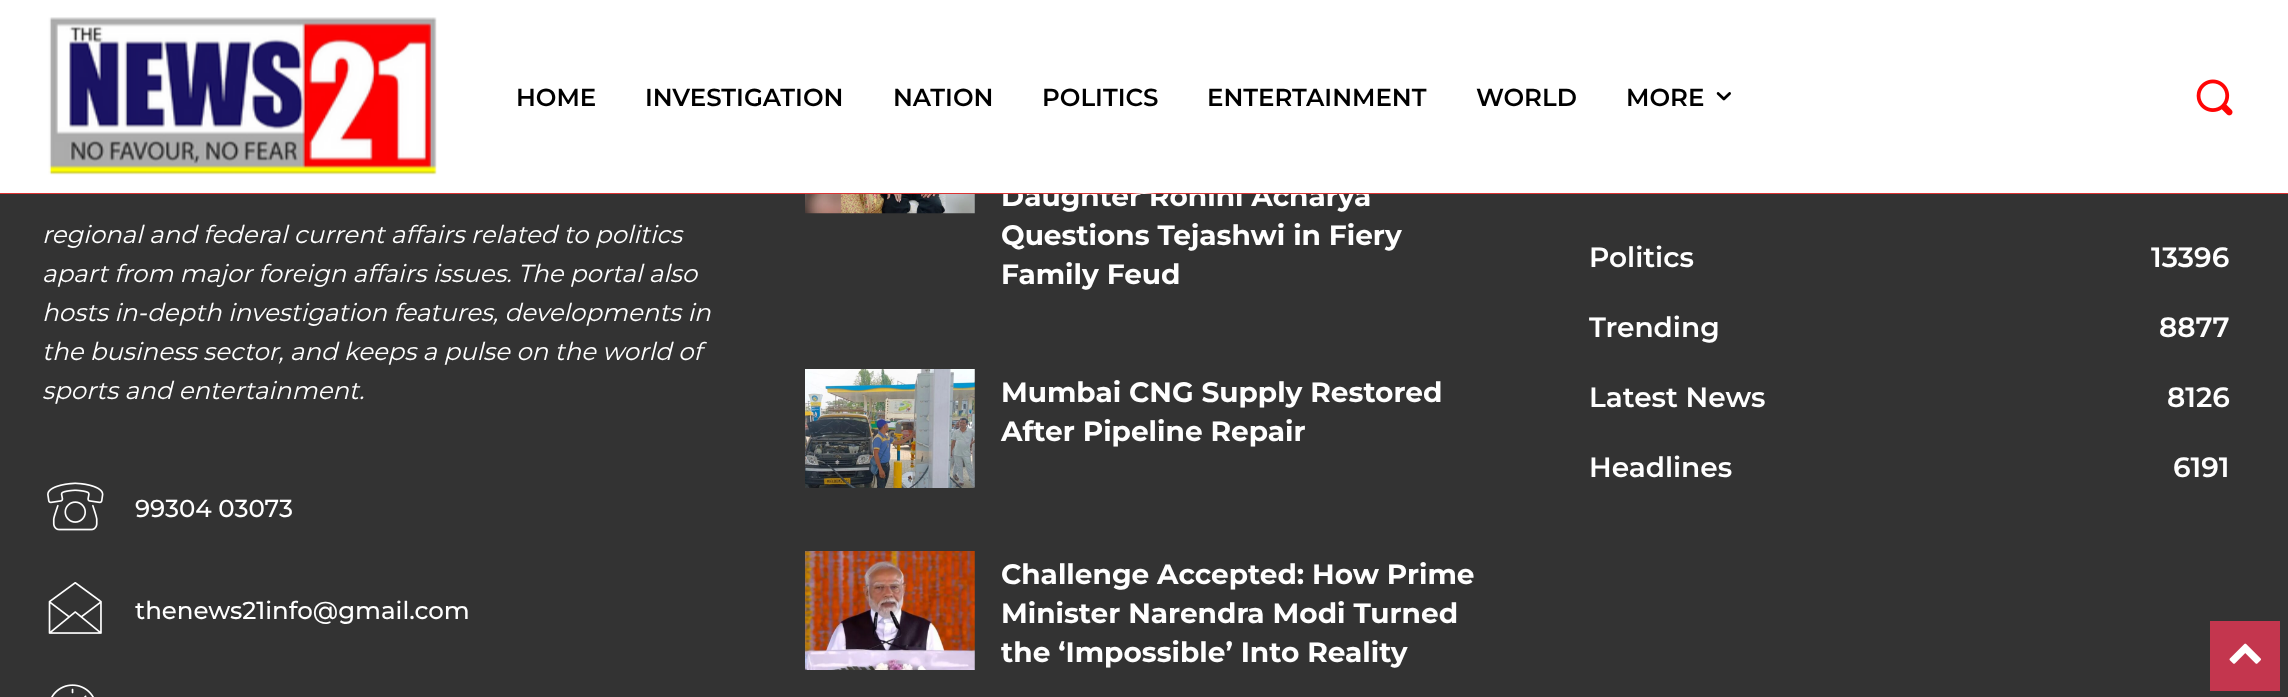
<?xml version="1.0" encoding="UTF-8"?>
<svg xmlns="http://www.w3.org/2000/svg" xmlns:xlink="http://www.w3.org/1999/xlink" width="2288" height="697">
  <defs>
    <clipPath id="clip1"><rect y="182" width="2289" height="12" /></clipPath>
  </defs>
  <rect width="100%" height="100%" fill="#333333" />
  <rect width="2288" height="194" fill="#ffffff" />
  <image x="48" y="17" width="389" height="158" xlink:href="image1.png" />
  <image x="1716" y="92" width="15" height="9" xlink:href="image2.png" />
  <image x="2196" y="79" width="37" height="37" xlink:href="image3.png" />
  <image x="47" y="482" width="57" height="49" xlink:href="image4.png" />
  <image x="48" y="582" width="54" height="52" xlink:href="image5.png" />
  <image x="51" y="684" width="43" height="13" xlink:href="image6.png" />
  <image x="805" y="194" width="170" height="20" xlink:href="image7.png" />
  <image x="805" y="369" width="170" height="119" xlink:href="image8.png" />
  <image x="805" y="551" width="170" height="119" xlink:href="image9.png" />
  <rect x="2210" y="621" width="70" height="70" fill="#c4364e" />
  <image x="2229" y="643" width="32" height="21" xlink:href="image10.png" />
  <text x="516" y="106" style="font-family: Montserrat; font-size: 24.5px; font-weight: 600; fill: #000000">HOME</text>
  <text x="645" y="106" style="font-family: Montserrat; font-size: 24.5px; font-weight: 600; fill: #000000">INVESTIGATION</text>
  <text x="893" y="106" style="font-family: Montserrat; font-size: 24.5px; font-weight: 600; fill: #000000">NATION</text>
  <text x="1042" y="106" style="font-family: Montserrat; font-size: 24.5px; font-weight: 600; fill: #000000">POLITICS</text>
  <text x="1207" y="106" style="font-family: Montserrat; font-size: 24.5px; font-weight: 600; fill: #000000">ENTERTAINMENT</text>
  <text x="1476" y="106" style="font-family: Montserrat; font-size: 24.5px; font-weight: 600; fill: #000000">WORLD</text>
  <text x="1626" y="106" style="font-family: Montserrat; font-size: 24.5px; font-weight: 600; fill: #000000">MORE</text>
  <text x="42" y="243" style="font-family: Montserrat; font-size: 24.5px; font-style: italic; fill: #ffffff">regional and federal current affairs related to politics</text>
  <text x="42" y="282" style="font-family: Montserrat; font-size: 24.5px; font-style: italic; fill: #ffffff">apart from major foreign affairs issues. The portal also</text>
  <text x="42" y="321" style="font-family: Montserrat; font-size: 24.5px; font-style: italic; fill: #ffffff">hosts in-depth investigation features, developments in</text>
  <text x="42" y="360" style="font-family: Montserrat; font-size: 24.5px; font-style: italic; fill: #ffffff">the business sector, and keeps a pulse on the world of</text>
  <text x="42" y="399" style="font-family: Montserrat; font-size: 24.5px; font-style: italic; fill: #ffffff">sports and entertainment.</text>
  <text x="135" y="517" style="font-family: Montserrat; font-size: 24.5px; font-weight: 500; fill: #ffffff">99304 03073</text>
  <text x="135" y="619" style="font-family: Montserrat; font-size: 24.5px; font-weight: 500; fill: #ffffff">thenews21info@gmail.com</text>
  <text x="1001" y="206" style="font-family: Montserrat; font-size: 28px; font-weight: bold; fill: #ffffff">Daughter Rohini Acharya</text>
  <g clip-path="url(#clip1)">
    <path d="M 0 198 v -5 h 1103 h 29 l 12 1 l 12 -1 h 30 h 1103 v 5 z" fill="#dd3333" />
  </g>
  <text x="1001" y="245" style="font-family: Montserrat; font-size: 28px; font-weight: bold; fill: #ffffff">Questions Tejashwi in Fiery</text>
  <text x="1001" y="284" style="font-family: Montserrat; font-size: 28px; font-weight: bold; fill: #ffffff">Family Feud</text>
  <text x="1001" y="402" style="font-family: Montserrat; font-size: 28px; font-weight: bold; fill: #ffffff">Mumbai CNG Supply Restored</text>
  <text x="1001" y="441" style="font-family: Montserrat; font-size: 28px; font-weight: bold; fill: #ffffff">After Pipeline Repair</text>
  <text x="1001" y="584" style="font-family: Montserrat; font-size: 28px; font-weight: bold; fill: #ffffff">Challenge Accepted: How Prime</text>
  <text x="1001" y="623" style="font-family: Montserrat; font-size: 28px; font-weight: bold; fill: #ffffff">Minister Narendra Modi Turned</text>
  <text x="1001" y="662" style="font-family: Montserrat; font-size: 28px; font-weight: bold; fill: #ffffff">the ‘Impossible’ Into Reality</text>
  <text x="1589" y="267" style="font-family: Montserrat; font-size: 28px; font-weight: 600; fill: #ffffff">Politics</text>
  <text x="2151" y="267" style="font-family: Montserrat; font-size: 28px; font-weight: 600; fill: #ffffff">13396</text>
  <text x="1589" y="337" style="font-family: Montserrat; font-size: 28px; font-weight: 600; fill: #ffffff">Trending</text>
  <text x="2159" y="337" style="font-family: Montserrat; font-size: 28px; font-weight: 600; fill: #ffffff">8877</text>
  <text x="1589" y="407" style="font-family: Montserrat; font-size: 28px; font-weight: 600; fill: #ffffff">Latest News</text>
  <text x="2167" y="407" style="font-family: Montserrat; font-size: 28px; font-weight: 600; fill: #ffffff">8126</text>
  <text x="1589" y="477" style="font-family: Montserrat; font-size: 28px; font-weight: 600; fill: #ffffff">Headlines</text>
  <text x="2173" y="477" style="font-family: Montserrat; font-size: 28px; font-weight: 600; fill: #ffffff">6191</text>
</svg>
